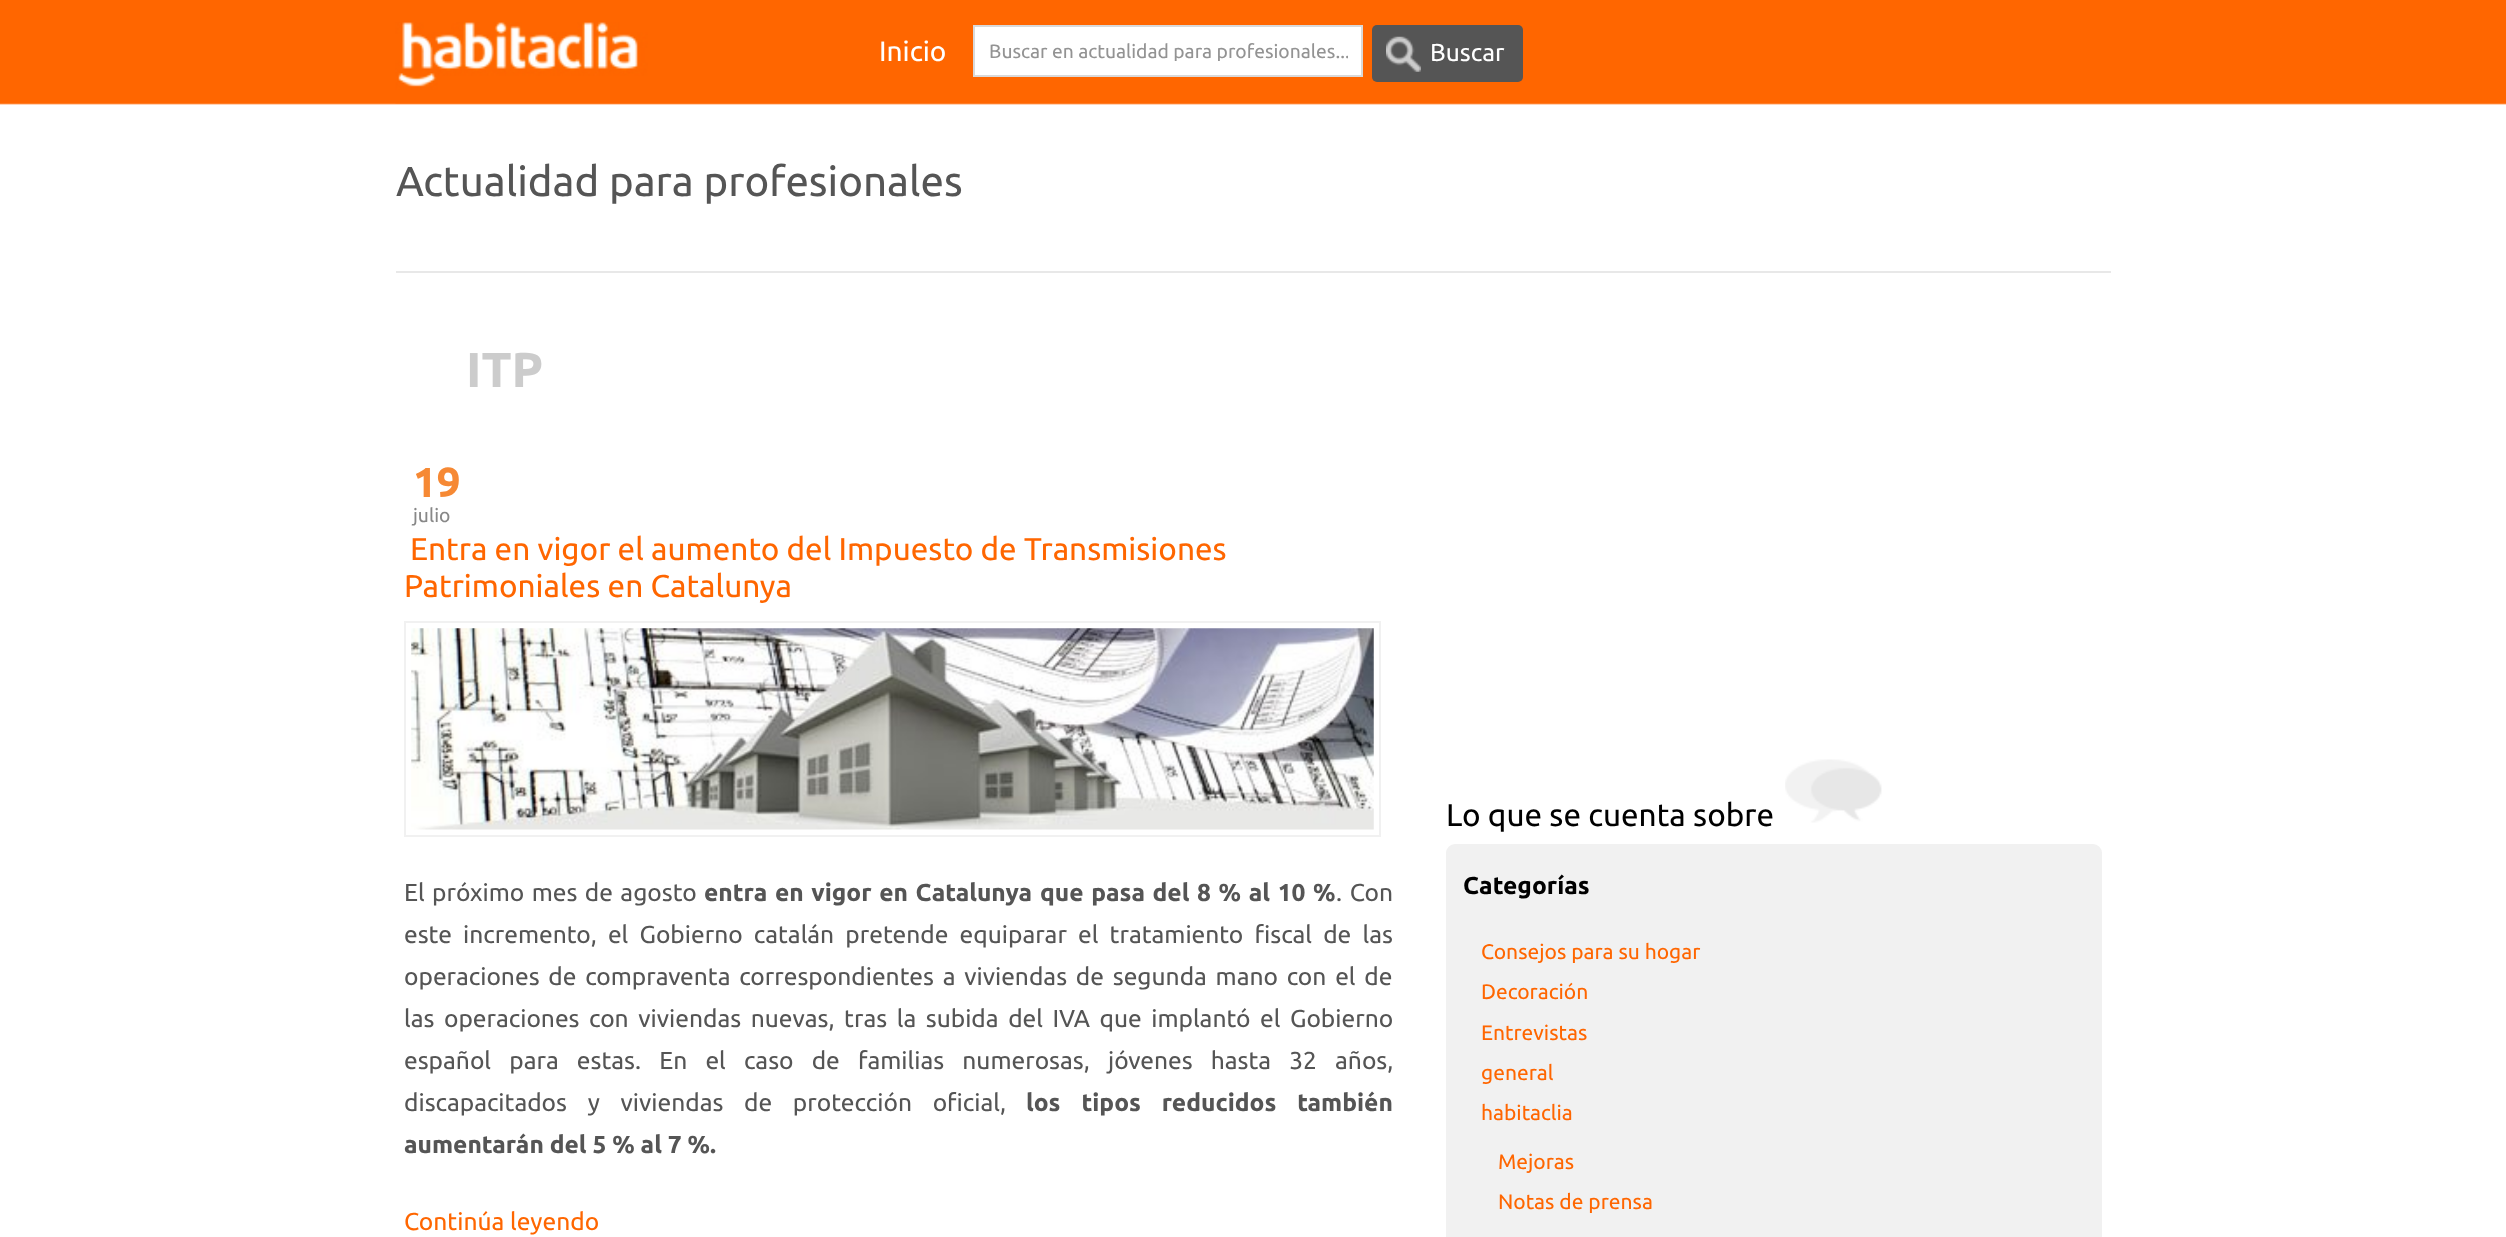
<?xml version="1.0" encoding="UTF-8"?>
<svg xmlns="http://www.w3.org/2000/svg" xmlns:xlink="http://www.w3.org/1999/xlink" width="2506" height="1237">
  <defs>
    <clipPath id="clip1"><rect x="989" y="40" width="359" height="21" /></clipPath>
  </defs>
  <rect width="100%" height="100%" fill="#ffffff" />
  <image x="0" y="0" width="2506" height="105" xlink:href="image1.png" />
  <image x="395" y="22" width="445" height="82" xlink:href="image2.png" />
  <rect x="974" y="26" width="388" height="50" fill="#ffffff" stroke="#d9d9d9" stroke-width="2" />
  <rect x="1372" y="25" width="151" height="57" rx="5" fill="#555555" />
  <image x="1386" y="36" width="35" height="36" xlink:href="image3.png" />
  <rect x="396" y="271" width="1715" height="2" fill="#e8e8e8" />
  <rect x="405" y="622" width="975" height="214" fill="none" stroke="#f1f1f1" stroke-width="2" />
  <image x="411" y="628" width="963" height="202" xlink:href="image4.png" />
  <image x="1785" y="759" width="97" height="64" xlink:href="image5.png" />
  <rect x="1446" y="844" width="656" height="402" rx="9" fill="#f1f1f1" />
  <text x="879" y="61" style="font-family: Ubuntu; font-size: 28px; fill: #ffffff">Inicio</text>
  <g clip-path="url(#clip1)">
    <text x="989" y="58" style="font-family: Ubuntu; font-size: 19.25px; fill: #939393">Buscar en actualidad para profesionales...</text>
  </g>
  <text x="1430" y="61" style="font-family: Ubuntu; font-size: 24.5px; fill: #ffffff">Buscar</text>
  <text x="396" y="196" style="font-family: Ubuntu; font-size: 42px; fill: #555555">Actualidad para profesionales</text>
  <text x="466" y="387" style="font-family: Ubuntu; font-size: 49px; font-weight: bold; fill: #cccccc">ITP</text>
  <text x="413" y="497" style="font-family: Ubuntu; font-size: 42px; font-weight: bold; fill: #f68934">19</text>
  <text x="413" y="522" style="font-family: Ubuntu; font-size: 19.25px; fill: #888888">julio</text>
  <text x="410" y="560" style="font-family: Ubuntu; font-size: 31.5px; fill: #ff6600">Entra en vigor el aumento del Impuesto de Transmisiones</text>
  <text x="404" y="597" style="font-family: Ubuntu; font-size: 31.5px; fill: #ff6600">Patrimoniales en Catalunya</text>
  <text x="404" y="901" word-spacing="1.75" style="font-family: Ubuntu; font-size: 24.5px; fill: #555555">El próximo mes de agosto</text>
  <text x="704" y="901" word-spacing="1.75" style="font-family: Ubuntu; font-size: 24.5px; font-weight: bold; fill: #555555">entra en vigor en Catalunya</text>
  <text x="1040" y="901" word-spacing="1.75" style="font-family: Ubuntu; font-size: 24.5px; font-weight: bold; fill: #555555">que pasa del 8 % al 10 %</text>
  <text x="1336" y="901" word-spacing="2" style="font-family: Ubuntu; font-size: 24.5px; fill: #555555">. Con</text>
  <text x="404" y="943" word-spacing="5.5" style="font-family: Ubuntu; font-size: 24.5px; fill: #555555">este incremento, el Gobierno catalán pretende equiparar el tratamiento fiscal de las</text>
  <text x="404" y="985" word-spacing="3.1" style="font-family: Ubuntu; font-size: 24.5px; fill: #555555">operaciones de compraventa correspondientes a viviendas de segunda mano con el de</text>
  <text x="404" y="1027" word-spacing="3.9" style="font-family: Ubuntu; font-size: 24.5px; fill: #555555">las operaciones con viviendas nuevas, tras la subida del IVA que implantó el Gobierno</text>
  <text x="404" y="1069" word-spacing="12.5" style="font-family: Ubuntu; font-size: 24.5px; fill: #555555">español para estas. En el caso de familias numerosas, jóvenes hasta 32 años,</text>
  <text x="404" y="1111" word-spacing="15" style="font-family: Ubuntu; font-size: 24.5px; fill: #555555">discapacitados y viviendas de protección oficial,</text>
  <text x="1026" y="1111" word-spacing="15" style="font-family: Ubuntu; font-size: 24.5px; font-weight: bold; fill: #555555">los tipos reducidos también</text>
  <text x="404" y="1153" style="font-family: Ubuntu; font-size: 24.5px; font-weight: bold; fill: #555555">aumentarán del 5 % al 7 %.</text>
  <text x="404" y="1230" style="font-family: Ubuntu; font-size: 24.5px; fill: #ff6600">Continúa leyendo</text>
  <text x="1446" y="826" style="font-family: Ubuntu; font-size: 31.5px; fill: #000000">Lo que se cuenta sobre</text>
  <text x="1463" y="894" style="font-family: Ubuntu; font-size: 24.5px; font-weight: bold; fill: #000000">Categorías</text>
  <text x="1481" y="959" style="font-family: Ubuntu; font-size: 21px; fill: #ff6600">Consejos para su hogar</text>
  <text x="1481" y="999" style="font-family: Ubuntu; font-size: 21px; fill: #ff6600">Decoración</text>
  <text x="1481" y="1040" style="font-family: Ubuntu; font-size: 21px; fill: #ff6600">Entrevistas</text>
  <text x="1481" y="1080" style="font-family: Ubuntu; font-size: 21px; fill: #ff6600">general</text>
  <text x="1481" y="1120" style="font-family: Ubuntu; font-size: 21px; fill: #ff6600">habitaclia</text>
  <text x="1498" y="1169" style="font-family: Ubuntu; font-size: 21px; fill: #ff6600">Mejoras</text>
  <text x="1498" y="1209" style="font-family: Ubuntu; font-size: 21px; fill: #ff6600">Notas de prensa</text>
</svg>
